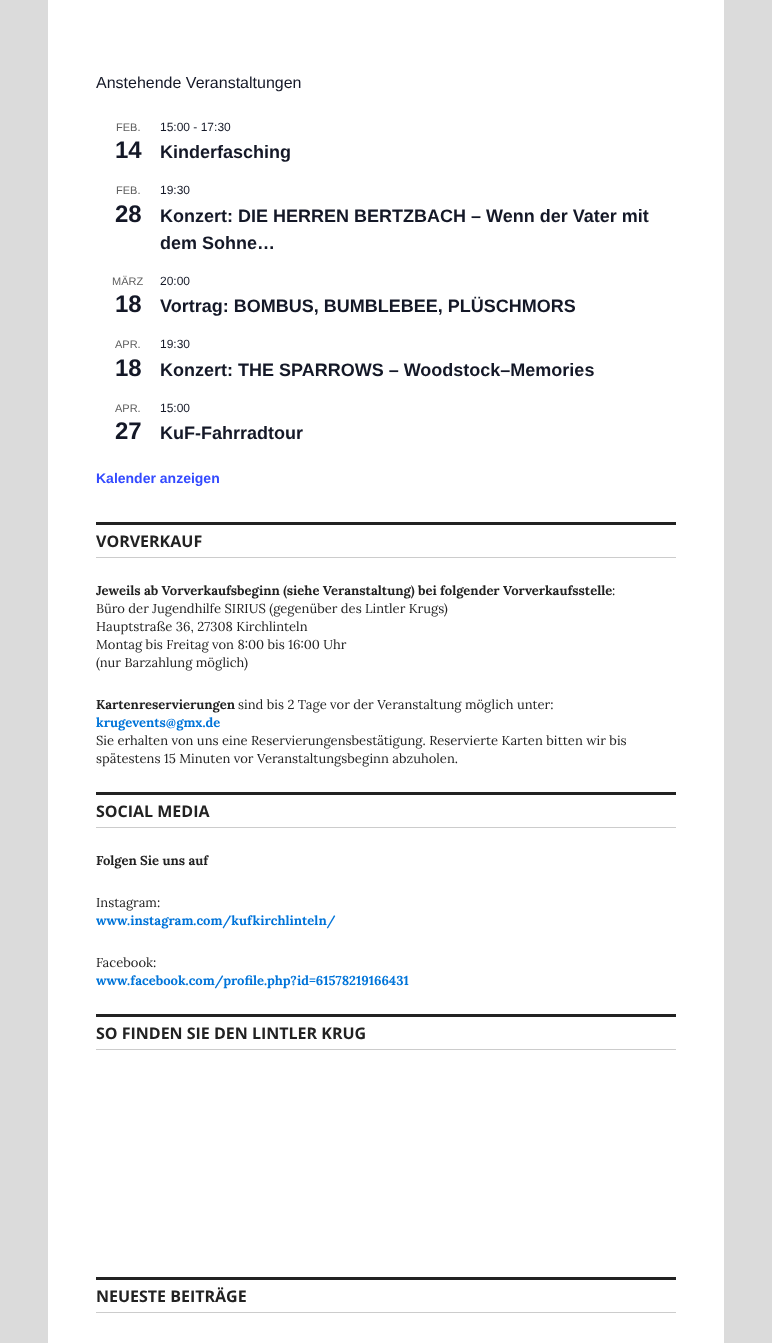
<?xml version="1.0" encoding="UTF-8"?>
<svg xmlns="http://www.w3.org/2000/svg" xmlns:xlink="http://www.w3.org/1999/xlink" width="772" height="1343">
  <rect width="100%" height="100%" fill="#dbdbdb" />
  <rect x="48" width="676" height="1343" fill="#ffffff" />
  <rect x="96" y="522" width="580" height="3" fill="#222222" />
  <rect x="96" y="557" width="580" height="1" fill="#cccccc" />
  <rect x="96" y="792" width="580" height="3" fill="#222222" />
  <rect x="96" y="827" width="580" height="1" fill="#cccccc" />
  <rect x="96" y="1014" width="580" height="3" fill="#222222" />
  <rect x="96" y="1049" width="580" height="1" fill="#cccccc" />
  <rect x="96" y="1277" width="580" height="3" fill="#222222" />
  <rect x="96" y="1312" width="580" height="1" fill="#cccccc" />
  <text x="96" y="88" style="font-family: Liberation Sans; font-size: 16px; fill: #141827">Anstehende Veranstaltungen</text>
  <text x="116" y="131" style="font-family: Liberation Sans; font-size: 11px; fill: #5d5d5d">FEB.</text>
  <text x="115" y="158" style="font-family: Liberation Sans; font-size: 24px; font-weight: bold; fill: #141827">14</text>
  <text x="160" y="131" style="font-family: Liberation Sans; font-size: 12px; fill: #141827">15:00 - 17:30</text>
  <text x="160" y="158" style="font-family: Liberation Sans; font-size: 18px; font-weight: bold; fill: #141827">Kinderfasching</text>
  <text x="116" y="194" style="font-family: Liberation Sans; font-size: 11px; fill: #5d5d5d">FEB.</text>
  <text x="115" y="222" style="font-family: Liberation Sans; font-size: 24px; font-weight: bold; fill: #141827">28</text>
  <text x="160" y="194" style="font-family: Liberation Sans; font-size: 12px; fill: #141827">19:30</text>
  <text x="160" y="222" style="font-family: Liberation Sans; font-size: 18px; font-weight: bold; fill: #141827">Konzert: DIE HERREN BERTZBACH – Wenn der Vater mit</text>
  <text x="160" y="249" style="font-family: Liberation Sans; font-size: 18px; font-weight: bold; fill: #141827">dem Sohne…</text>
  <text x="112" y="285" style="font-family: Liberation Sans; font-size: 11px; fill: #5d5d5d">MÄRZ</text>
  <text x="115" y="312" style="font-family: Liberation Sans; font-size: 24px; font-weight: bold; fill: #141827">18</text>
  <text x="160" y="285" style="font-family: Liberation Sans; font-size: 12px; fill: #141827">20:00</text>
  <text x="160" y="312" style="font-family: Liberation Sans; font-size: 18px; font-weight: bold; fill: #141827">Vortrag: BOMBUS, BUMBLEBEE, PLÜSCHMORS</text>
  <text x="115" y="348" style="font-family: Liberation Sans; font-size: 11px; fill: #5d5d5d">APR.</text>
  <text x="115" y="376" style="font-family: Liberation Sans; font-size: 24px; font-weight: bold; fill: #141827">18</text>
  <text x="160" y="348" style="font-family: Liberation Sans; font-size: 12px; fill: #141827">19:30</text>
  <text x="160" y="376" style="font-family: Liberation Sans; font-size: 18px; font-weight: bold; fill: #141827">Konzert: THE SPARROWS – Woodstock–Memories</text>
  <text x="115" y="412" style="font-family: Liberation Sans; font-size: 11px; fill: #5d5d5d">APR.</text>
  <text x="115" y="439" style="font-family: Liberation Sans; font-size: 24px; font-weight: bold; fill: #141827">27</text>
  <text x="160" y="412" style="font-family: Liberation Sans; font-size: 12px; fill: #141827">15:00</text>
  <text x="160" y="439" style="font-family: Liberation Sans; font-size: 18px; font-weight: bold; fill: #141827">KuF-Fahrradtour</text>
  <text x="96" y="483" style="font-family: Liberation Sans; font-size: 14px; font-weight: bold; fill: #334aff">Kalender anzeigen</text>
  <text x="96" y="547" style="font-family: Open Sans; font-size: 16px; font-weight: bold; fill: #222222">VORVERKAUF</text>
  <text x="96" y="595" style="font-family: Lora; font-size: 13px; font-weight: bold; fill: #222222">Jeweils ab Vorverkaufsbeginn (siehe Veranstaltung) bei folgender Vorverkaufsstelle</text>
  <text x="612" y="595" style="font-family: Lora; font-size: 13px; fill: #222222">:</text>
  <text x="96" y="613" style="font-family: Lora; font-size: 13px; fill: #222222">Büro der Jugendhilfe SIRIUS (gegenüber des Lintler Krugs)</text>
  <text x="96" y="631" style="font-family: Lora; font-size: 13px; fill: #222222">Hauptstraße 36, 27308 Kirchlinteln</text>
  <text x="96" y="649" style="font-family: Lora; font-size: 13px; fill: #222222">Montag bis Freitag von 8:00 bis 16:00 Uhr</text>
  <text x="96" y="667" style="font-family: Lora; font-size: 13px; fill: #222222">(nur Barzahlung möglich)</text>
  <text x="96" y="709" style="font-family: Lora; font-size: 13px; font-weight: bold; fill: #222222">Kartenreservierungen</text>
  <text x="238" y="709" style="font-family: Lora; font-size: 13px; fill: #222222">sind bis 2 Tage vor der Veranstaltung möglich unter:</text>
  <text x="96" y="727" style="font-family: Lora; font-size: 13px; font-weight: bold; fill: #0074d9">krugevents@gmx.de</text>
  <text x="96" y="745" style="font-family: Lora; font-size: 13px; fill: #222222">Sie erhalten von uns eine Reservierungensbestätigung. Reservierte Karten bitten wir bis</text>
  <text x="96" y="763" style="font-family: Lora; font-size: 13px; fill: #222222">spätestens 15 Minuten vor Veranstaltungsbeginn abzuholen.</text>
  <text x="96" y="817" style="font-family: Open Sans; font-size: 16px; font-weight: bold; fill: #222222">SOCIAL MEDIA</text>
  <text x="96" y="865" style="font-family: Lora; font-size: 13px; font-weight: bold; fill: #222222">Folgen Sie uns auf</text>
  <text x="96" y="907" style="font-family: Lora; font-size: 13px; fill: #222222">Instagram:</text>
  <text x="96" y="925" style="font-family: Lora; font-size: 13px; font-weight: bold; fill: #0074d9">www.instagram.com/kufkirchlinteln/</text>
  <text x="96" y="967" style="font-family: Lora; font-size: 13px; fill: #222222">Facebook:</text>
  <text x="96" y="985" style="font-family: Lora; font-size: 13px; font-weight: bold; fill: #0074d9">www.facebook.com/profile.php?id=61578219166431</text>
  <text x="96" y="1039" style="font-family: Open Sans; font-size: 16px; font-weight: bold; fill: #222222">SO FINDEN SIE DEN LINTLER KRUG</text>
  <text x="96" y="1302" style="font-family: Open Sans; font-size: 16px; font-weight: bold; fill: #222222">NEUESTE BEITRÄGE</text>
</svg>
